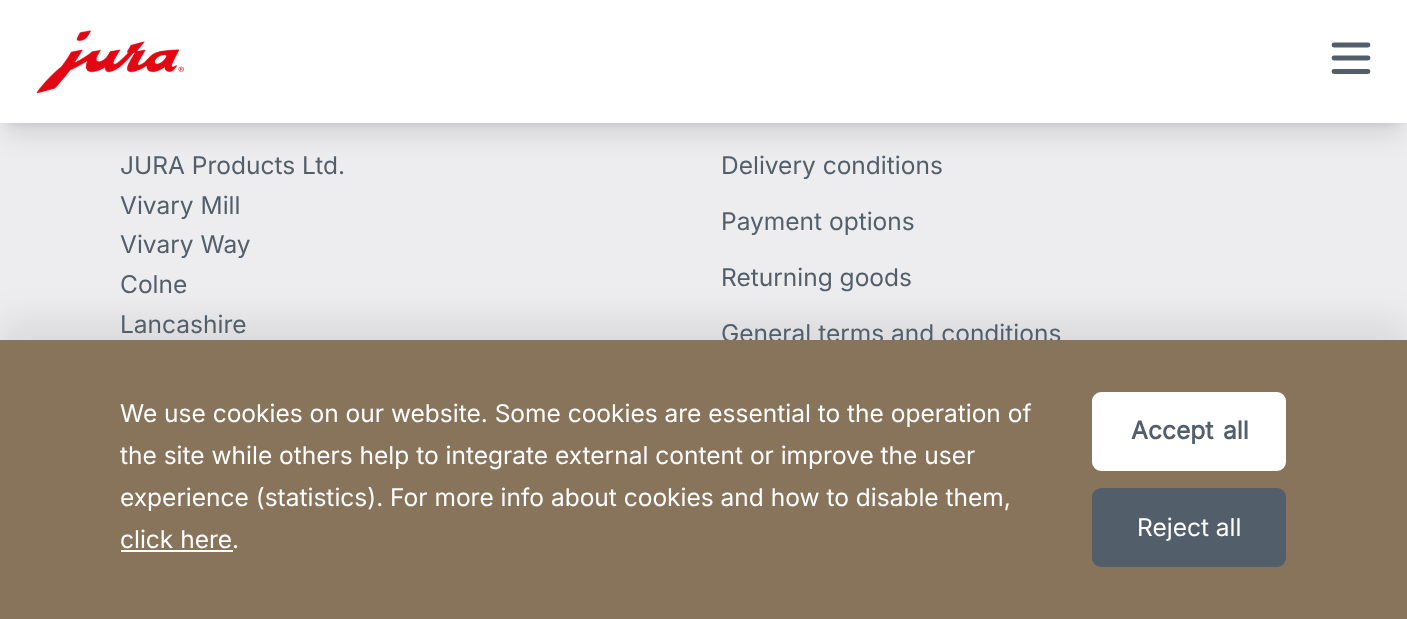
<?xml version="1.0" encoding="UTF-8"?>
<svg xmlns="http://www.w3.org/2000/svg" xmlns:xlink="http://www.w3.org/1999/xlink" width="1407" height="619">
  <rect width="100%" height="100%" fill="#ededef" />
  <rect x="7" y="14" width="1393" height="109" fill="#000000" fill-opacity="0.1" filter="blur(5px)" />
  <rect x="5" y="23" width="1397" height="112" fill="#000000" fill-opacity="0.1" filter="blur(13px)" />
  <rect width="1407" height="123" fill="#ffffff" />
  <image x="36" y="30" width="148" height="64" xlink:href="image1.png" />
  <path d="M 1334 45 h 34 m -34 13 h 34 m -34 13.5 h 34" fill="none" stroke="#525f6b" stroke-width="4.8" stroke-linecap="round" />
  <rect y="320" width="1407" height="280" fill="#000000" fill-opacity="0.08" filter="blur(17.5px)" />
  <text x="120" y="174" style="font-family: Inter; font-size: 24.5px; fill: #525f6b">JURA Products Ltd.</text>
  <text x="120" y="214" style="font-family: Inter; font-size: 24.5px; fill: #525f6b">Vivary Mill</text>
  <text x="120" y="253" style="font-family: Inter; font-size: 24.5px; fill: #525f6b">Vivary Way</text>
  <text x="120" y="293" style="font-family: Inter; font-size: 24.5px; fill: #525f6b">Colne</text>
  <text x="120" y="333" style="font-family: Inter; font-size: 24.5px; fill: #525f6b">Lancashire</text>
  <text x="721" y="174" style="font-family: Inter; font-size: 24.5px; fill: #525f6b">Delivery conditions</text>
  <text x="721" y="230" style="font-family: Inter; font-size: 24.5px; fill: #525f6b">Payment options</text>
  <text x="721" y="286" style="font-family: Inter; font-size: 24.5px; fill: #525f6b">Returning goods</text>
  <text x="721" y="342" style="font-family: Inter; font-size: 24.5px; fill: #525f6b">General terms and conditions</text>
  <rect y="340" width="1407" height="279" fill="#88735b" />
  <text x="120" y="422" style="font-family: Inter; font-size: 24.5px; fill: #ffffff">We use cookies on our website. Some cookies are essential to the operation of</text>
  <text x="120" y="464" style="font-family: Inter; font-size: 24.5px; fill: #ffffff">the site while others help to integrate external content or improve the user</text>
  <text x="120" y="506" style="font-family: Inter; font-size: 24.5px; fill: #ffffff">experience (statistics). For more info about cookies and how to disable them,</text>
  <text x="120" y="548" style="font-family: Inter; font-size: 24.5px; fill: #ffffff">click here.</text>
  <rect x="121" y="550" width="112" height="2" fill="#ffffff" />
  <rect x="1094" y="394" width="190" height="75" rx="7" fill="#ffffff" stroke="#ffffff" stroke-width="4" />
  <text x="1131" y="439" word-spacing="3" style="font-family: Inter; font-size: 24.5px; font-weight: bold; fill: #525f6b">Accept all</text>
  <rect x="1092" y="488" width="194" height="79" rx="9" fill="#525f6b" />
  <text x="1137" y="536" style="font-family: Inter; font-size: 24.5px; fill: #ffffff">Reject all</text>
</svg>
